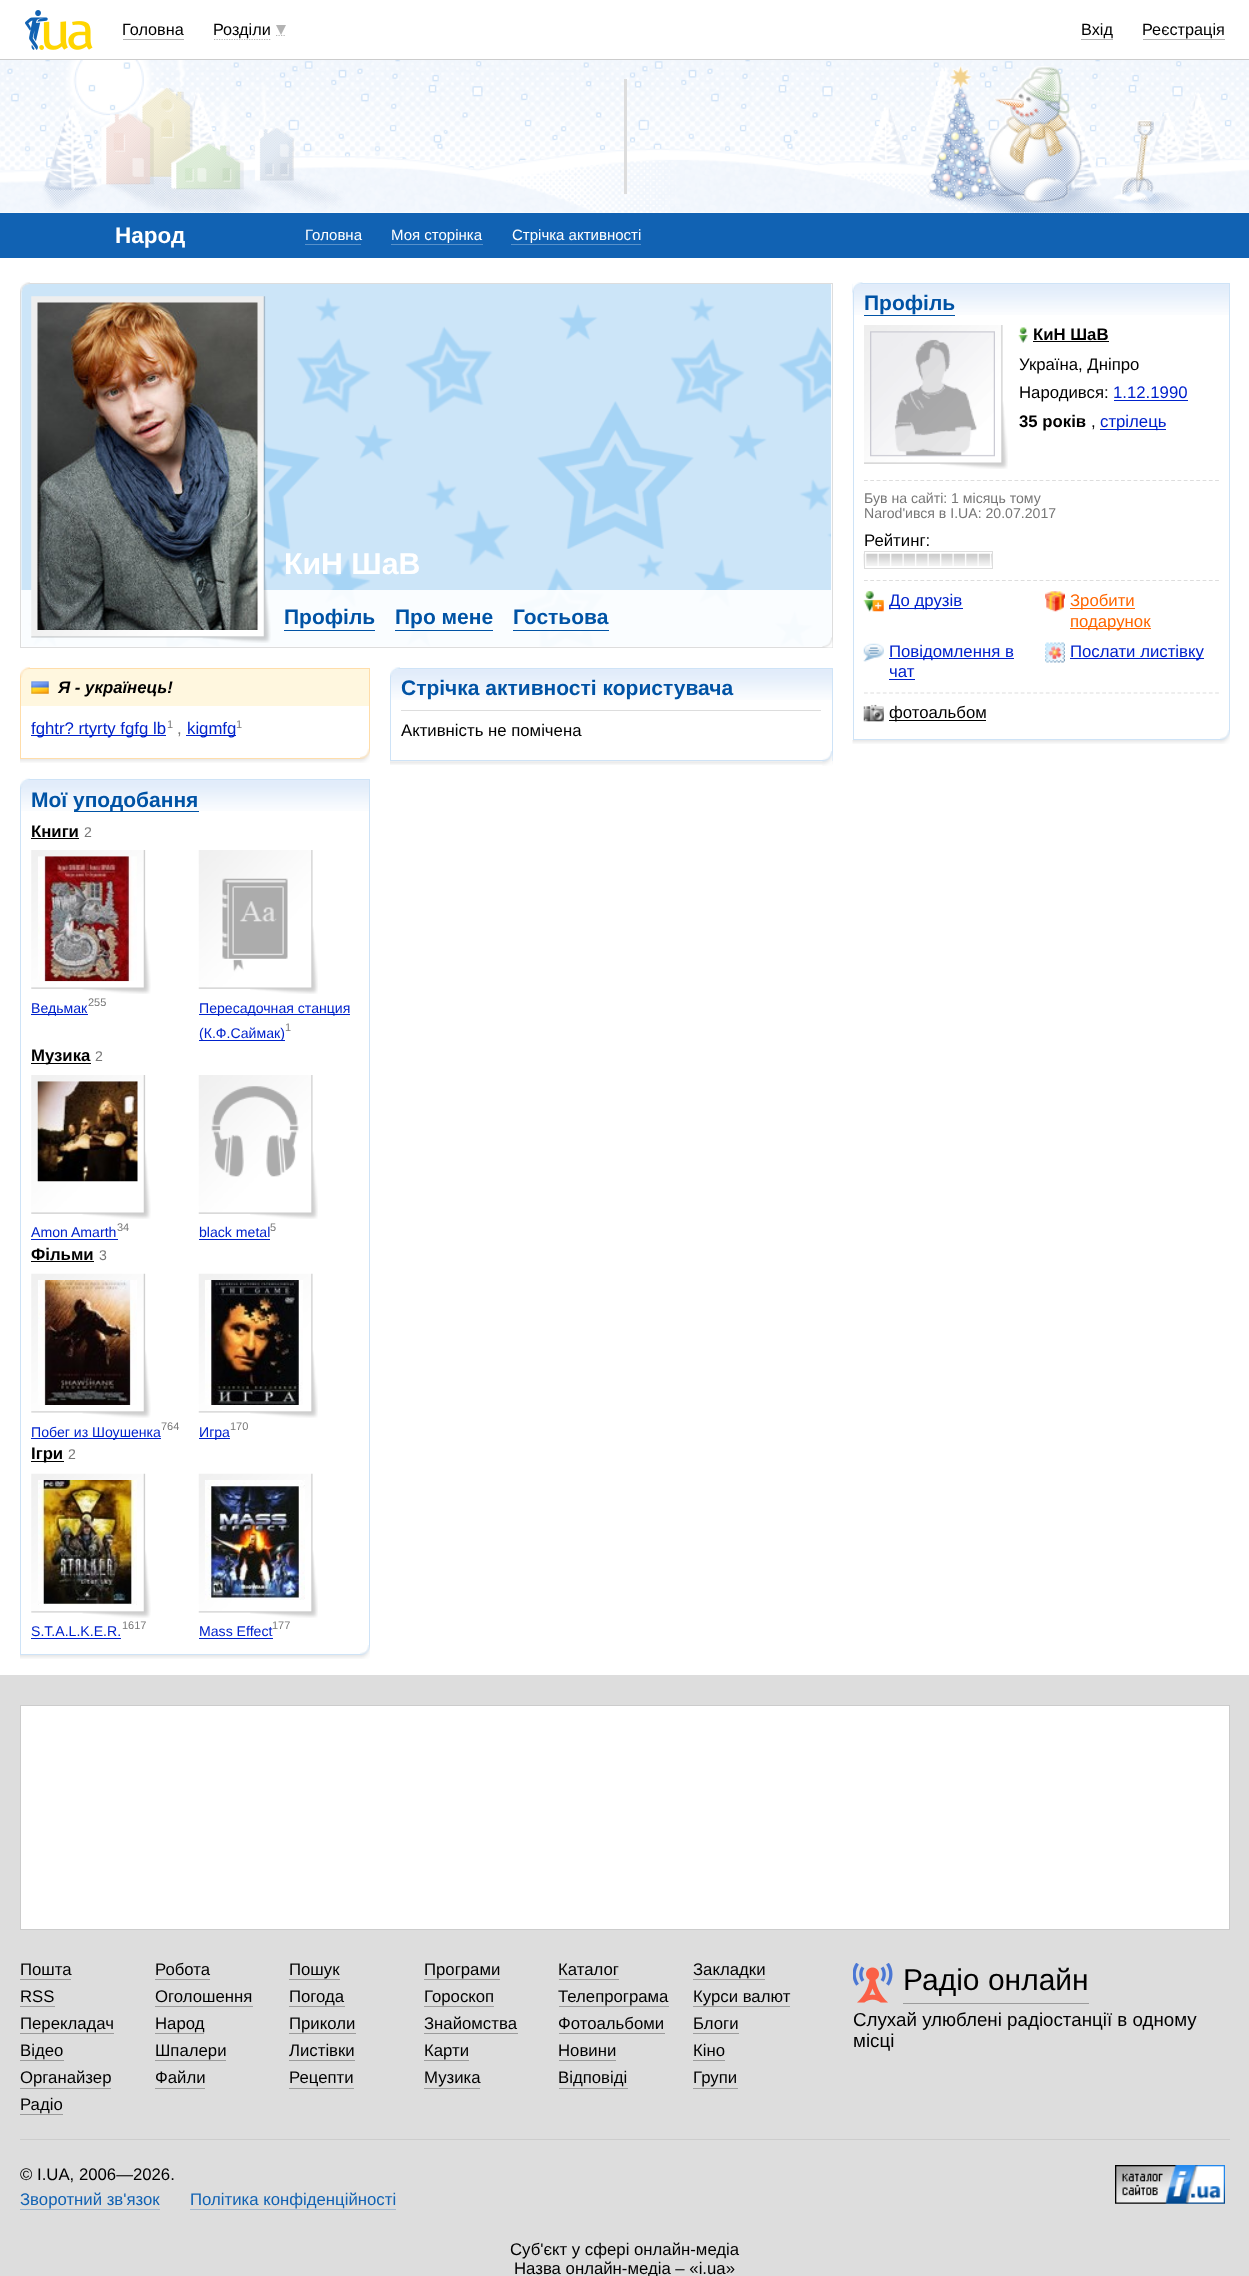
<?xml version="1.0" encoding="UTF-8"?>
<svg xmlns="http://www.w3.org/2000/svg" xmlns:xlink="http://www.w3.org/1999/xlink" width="1249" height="2276">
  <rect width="100%" height="100%" fill="#ffffff" />
  <rect y="59" width="1249" height="1" fill="#cccccc" />
  <image x="25" y="10" width="68" height="40" xlink:href="image1.png" />
  <rect x="123" y="39" width="61" height="1" fill="#b3b3b3" />
  <path d="M 214 39.5 h 57" fill="none" stroke="#b3b3b3" stroke-width="1.2" stroke-dasharray="1.25 1.25" />
  <path d="M 276 35.5 h 10" fill="none" stroke="#b3b3b3" stroke-width="1.2" stroke-dasharray="1.25 1.25" />
  <path d="M 276 25 h 10 l -5 10 z" fill="#b3b3b3" />
  <rect x="1081" y="39" width="32" height="1" fill="#b3b3b3" />
  <rect x="1143" y="39" width="82" height="1" fill="#b3b3b3" />
  <image x="0" y="60" width="1249" height="153" xlink:href="image2.png" />
  <rect x="624" y="79" width="3" height="115" fill="#dddddd" />
  <rect y="213" width="1249" height="45" fill="#1162b3" />
  <rect x="305" y="244" width="56" height="1" fill="#5891ca" />
  <rect x="391" y="244" width="92" height="1" fill="#5891ca" />
  <rect x="511" y="244" width="130" height="1" fill="#5891ca" />
  <image x="852" y="740" width="368" height="4" xlink:href="image3.png" />
  <image x="852" y="283" width="377" height="32" xlink:href="image5.png" />
  <rect x="853.5" y="283.5" width="376" height="456" fill="none" stroke="#cee3f7" />
  <image x="852" y="282" width="11" height="11" xlink:href="image4.png" />
  <rect x="864" y="315" width="91" height="1" fill="#0053a5" />
  <image x="864" y="325" width="144" height="144" xlink:href="image6.png" />
  <image x="870" y="331" width="125" height="126" xlink:href="image7.png" />
  <image x="1018" y="327" width="10" height="16" xlink:href="image8.png" />
  <rect x="1033" y="341" width="76" height="1" fill="#000000" />
  <rect x="1114" y="400" width="74" height="1" fill="#0022cc" />
  <rect x="1100" y="429" width="66" height="1" fill="#0022cc" />
  <path d="M 864 480.5 h 355" fill="none" stroke="#dddddd" stroke-width="1.2" stroke-dasharray="3.75 2.52" />
  <image x="863" y="553" width="129" height="13" xlink:href="image9.png" />
  <rect x="864.5" y="551.5" width="128" height="17" fill="none" stroke="#dddddd" />
  <path d="M 864 580.5 h 355" fill="none" stroke="#dddddd" stroke-width="1.2" stroke-dasharray="3.75 2.52" />
  <image x="863" y="591" width="21" height="21" xlink:href="image10.png" />
  <rect x="889" y="608" width="74" height="1" fill="#0022cc" />
  <image x="1045" y="591" width="20" height="21" xlink:href="image11.png" />
  <rect x="1070" y="608" width="65" height="1" fill="#ff6600" />
  <rect x="1070" y="628" width="81" height="1" fill="#ff6600" />
  <image x="863" y="643" width="21" height="19" xlink:href="image12.png" />
  <rect x="889" y="658" width="125" height="1" fill="#0022cc" />
  <rect x="889" y="679" width="26" height="1" fill="#0022cc" />
  <image x="1045" y="642" width="20" height="21" xlink:href="image13.png" />
  <rect x="1070" y="658" width="134" height="1" fill="#0022cc" />
  <path d="M 864 693 h 355" fill="none" stroke="#dddddd" stroke-width="1.2" stroke-dasharray="3.75 2.52" />
  <image x="863" y="704" width="21" height="18" xlink:href="image14.png" />
  <rect x="889" y="720" width="97" height="1" fill="#000000" />
  <image x="1220" y="730" width="10" height="14" xlink:href="image15.png" />
  <rect x="20.5" y="283.5" width="812" height="364" fill="none" stroke="#dddddd" />
  <image x="21" y="284" width="811" height="363" xlink:href="image17.png" />
  <image x="20" y="282" width="10" height="11" xlink:href="image16.png" />
  <rect x="21" y="590" width="810" height="56" fill="#ffffff" fill-opacity="0.9" />
  <image x="31" y="296" width="240" height="347" xlink:href="image18.png" />
  <image x="37" y="302" width="221" height="328" xlink:href="image19.png" />
  <rect x="284" y="630" width="91" height="1" fill="#0053a5" />
  <rect x="395" y="630" width="98" height="1" fill="#0053a5" />
  <rect x="513" y="630" width="96" height="1" fill="#0053a5" />
  <image x="822" y="637" width="11" height="11" xlink:href="image20.png" />
  <image x="20" y="759" width="340" height="4" xlink:href="image21.png" />
  <rect x="20.5" y="668.5" width="349" height="90" fill="none" stroke="#ffddaa" />
  <rect x="21" y="669" width="348" height="37" fill="#fff7df" />
  <image x="20" y="667" width="10" height="11" xlink:href="image22.png" />
  <image x="31" y="681" width="18" height="13" xlink:href="image23.png" />
  <rect x="31" y="735" width="135" height="1" fill="#0022cc" />
  <rect x="186" y="735" width="50" height="1" fill="#0022cc" />
  <image x="360" y="748" width="10" height="15" xlink:href="image24.png" />
  <image x="20" y="1655" width="340" height="4" xlink:href="image25.png" />
  <image x="21" y="780" width="348" height="31" xlink:href="image27.png" />
  <rect x="20.5" y="779.5" width="349" height="875" fill="none" stroke="#cee3f7" />
  <image x="20" y="778" width="10" height="11" xlink:href="image26.png" />
  <rect x="74" y="811" width="125" height="1" fill="#0053a5" />
  <rect x="31" y="838" width="48" height="1" fill="#000000" />
  <image x="31" y="850" width="120" height="144" xlink:href="image28.png" />
  <image x="38" y="856" width="99" height="126" xlink:href="image29.png" />
  <rect x="31" y="1014" width="57" height="1" fill="#0022cc" />
  <image x="198" y="850" width="120" height="144" xlink:href="image30.png" />
  <image x="222" y="878" width="66" height="94" xlink:href="image31.png" />
  <rect x="199" y="1014" width="151" height="1" fill="#0022cc" />
  <rect x="199" y="1040" width="86" height="1" fill="#0022cc" />
  <rect x="31" y="1063" width="60" height="1" fill="#000000" />
  <image x="31" y="1075" width="120" height="144" xlink:href="image28.png" />
  <image x="37" y="1081" width="101" height="101" xlink:href="image32.png" />
  <rect x="31" y="1239" width="87" height="1" fill="#0022cc" />
  <image x="198" y="1075" width="120" height="144" xlink:href="image30.png" />
  <image x="211" y="1086" width="88" height="91" xlink:href="image33.png" />
  <rect x="199" y="1239" width="71" height="1" fill="#0022cc" />
  <rect x="31" y="1261" width="63" height="1" fill="#000000" />
  <image x="31" y="1273" width="120" height="145" xlink:href="image34.png" />
  <image x="38" y="1280" width="99" height="125" xlink:href="image35.png" />
  <rect x="31" y="1438" width="130" height="1" fill="#0022cc" />
  <image x="198" y="1273" width="120" height="145" xlink:href="image36.png" />
  <image x="205" y="1280" width="98" height="125" xlink:href="image37.png" />
  <rect x="199" y="1438" width="31" height="1" fill="#0022cc" />
  <rect x="31" y="1461" width="33" height="1" fill="#000000" />
  <image x="31" y="1473" width="120" height="145" xlink:href="image34.png" />
  <image x="38" y="1480" width="99" height="125" xlink:href="image38.png" />
  <rect x="31" y="1638" width="90" height="1" fill="#0022cc" />
  <image x="198" y="1473" width="120" height="145" xlink:href="image36.png" />
  <image x="205" y="1480" width="100" height="120" xlink:href="image39.png" />
  <rect x="199" y="1638" width="74" height="1" fill="#0022cc" />
  <image x="360" y="1645" width="10" height="14" xlink:href="image15.png" />
  <image x="390" y="761" width="443" height="4" xlink:href="image40.png" />
  <image x="391" y="669" width="441" height="31" xlink:href="image42.png" />
  <rect x="390.5" y="668.5" width="442" height="92" fill="none" stroke="#cee3f7" />
  <image x="390" y="667" width="10" height="10" xlink:href="image41.png" />
  <rect x="401" y="710" width="420" height="1" fill="#dddddd" />
  <image x="822" y="751" width="11" height="15" xlink:href="image43.png" />
  <rect y="1675" width="1249" height="601" fill="#dddddd" />
  <rect x="20.5" y="1705.5" width="1209" height="224" fill="#ffffff" stroke="#cccccc" />
  <rect x="20" y="1979" width="51" height="1" fill="#9b9b9b" />
  <rect x="155" y="1979" width="55" height="1" fill="#9b9b9b" />
  <rect x="289" y="1979" width="51" height="1" fill="#9b9b9b" />
  <rect x="424" y="1979" width="76" height="1" fill="#9b9b9b" />
  <rect x="559" y="1979" width="60" height="1" fill="#9b9b9b" />
  <rect x="693" y="1979" width="72" height="1" fill="#9b9b9b" />
  <rect x="20" y="2006" width="35" height="1" fill="#9b9b9b" />
  <rect x="155" y="2006" width="98" height="1" fill="#9b9b9b" />
  <rect x="289" y="2006" width="56" height="1" fill="#9b9b9b" />
  <rect x="424" y="2006" width="70" height="1" fill="#9b9b9b" />
  <rect x="559" y="2006" width="110" height="1" fill="#9b9b9b" />
  <rect x="693" y="2006" width="97" height="1" fill="#9b9b9b" />
  <rect x="20" y="2033" width="94" height="1" fill="#9b9b9b" />
  <rect x="155" y="2033" width="49" height="1" fill="#9b9b9b" />
  <rect x="289" y="2033" width="67" height="1" fill="#9b9b9b" />
  <rect x="424" y="2033" width="94" height="1" fill="#9b9b9b" />
  <rect x="559" y="2033" width="106" height="1" fill="#9b9b9b" />
  <rect x="693" y="2033" width="46" height="1" fill="#9b9b9b" />
  <rect x="20" y="2060" width="44" height="1" fill="#9b9b9b" />
  <rect x="155" y="2060" width="71" height="1" fill="#9b9b9b" />
  <rect x="289" y="2060" width="66" height="1" fill="#9b9b9b" />
  <rect x="424" y="2060" width="45" height="1" fill="#9b9b9b" />
  <rect x="559" y="2060" width="57" height="1" fill="#9b9b9b" />
  <rect x="693" y="2060" width="32" height="1" fill="#9b9b9b" />
  <rect x="20" y="2088" width="91" height="1" fill="#9b9b9b" />
  <rect x="155" y="2088" width="50" height="1" fill="#9b9b9b" />
  <rect x="289" y="2088" width="65" height="1" fill="#9b9b9b" />
  <rect x="424" y="2088" width="56" height="1" fill="#9b9b9b" />
  <rect x="559" y="2088" width="69" height="1" fill="#9b9b9b" />
  <rect x="693" y="2088" width="45" height="1" fill="#9b9b9b" />
  <rect x="20" y="2114" width="43" height="1" fill="#9b9b9b" />
  <rect x="903" y="2003" width="186" height="1" fill="#9b9b9b" />
  <image x="853" y="1963" width="40" height="40" xlink:href="image44.png" />
  <rect x="20" y="2139" width="1210" height="1" fill="#cccccc" />
  <image x="1115" y="2165" width="110" height="39" xlink:href="image45.png" />
  <rect x="20" y="2209" width="140" height="1" fill="#a0b8d0" />
  <rect x="190" y="2209" width="206" height="1" fill="#a0b8d0" />
  <text x="122" y="35" style="font-family: Liberation Sans; font-size: 16.25px; fill: #000000">Головна</text>
  <text x="213" y="35" style="font-family: Liberation Sans; font-size: 16.25px; fill: #000000">Розділи</text>
  <text x="1081" y="35" style="font-family: Liberation Sans; font-size: 16.25px; fill: #000000">Вхід</text>
  <text x="1142" y="35" style="font-family: Liberation Sans; font-size: 16.25px; fill: #000000">Реєстрація</text>
  <text x="115" y="243" style="font-family: Liberation Sans; font-size: 22.5px; font-weight: bold; fill: #ffffff">Народ</text>
  <text x="305" y="240" style="font-family: Liberation Sans; font-size: 15px; fill: #ffffff">Головна</text>
  <text x="391" y="240" style="font-family: Liberation Sans; font-size: 15px; fill: #ffffff">Моя сторінка</text>
  <text x="512" y="240" style="font-family: Liberation Sans; font-size: 15px; fill: #ffffff">Стрічка активності</text>
  <text x="864" y="310" style="font-family: Liberation Sans; font-size: 21px; font-weight: bold; fill: #0053a5">Профіль</text>
  <text x="1033" y="340" style="font-family: Liberation Sans; font-size: 16.75px; font-weight: bold; fill: #000000">КиН ШаВ</text>
  <text x="1019" y="370" style="font-family: Liberation Sans; font-size: 16.75px; fill: #000000">Україна, Дніпро</text>
  <text x="1019" y="398" style="font-family: Liberation Sans; font-size: 16.75px; fill: #000000">Народився:</text>
  <text x="1113" y="398" style="font-family: Liberation Sans; font-size: 16.75px; fill: #0022cc">1.12.1990</text>
  <text x="1019" y="427" style="font-family: Liberation Sans; font-size: 16.75px; font-weight: bold; fill: #000000">35 років</text>
  <text x="1091" y="427" style="font-family: Liberation Sans; font-size: 16.75px; fill: #000000">,</text>
  <text x="1100" y="427" style="font-family: Liberation Sans; font-size: 16.75px; fill: #0022cc">стрілець</text>
  <text x="864" y="503" style="font-family: Liberation Sans; font-size: 14.1px; fill: #777777">Був на сайті: 1 місяць тому</text>
  <text x="864" y="518" style="font-family: Liberation Sans; font-size: 14.1px; fill: #777777">Narod'ився в I.UA: 20.07.2017</text>
  <text x="864" y="546" style="font-family: Liberation Sans; font-size: 16.75px; fill: #000000">Рейтинг:</text>
  <text x="889" y="606" style="font-family: Liberation Sans; font-size: 16.75px; fill: #0022cc">До друзів</text>
  <text x="1070" y="606" style="font-family: Liberation Sans; font-size: 16.75px; fill: #ff6600">Зробити</text>
  <text x="1070" y="627" style="font-family: Liberation Sans; font-size: 16.75px; fill: #ff6600">подарунок</text>
  <text x="889" y="657" style="font-family: Liberation Sans; font-size: 16.75px; fill: #0022cc">Повідомлення в</text>
  <text x="889" y="677" style="font-family: Liberation Sans; font-size: 16.75px; fill: #0022cc">чат</text>
  <text x="1070" y="657" style="font-family: Liberation Sans; font-size: 16.75px; fill: #0022cc">Послати листівку</text>
  <text x="889" y="718" style="font-family: Liberation Sans; font-size: 16.75px; fill: #000000">фотоальбом</text>
  <text x="284" y="574" style="font-family: Liberation Sans; font-size: 30.25px; font-weight: bold; fill: #ffffff">КиН ШаВ</text>
  <text x="284" y="624" style="font-family: Liberation Sans; font-size: 21px; font-weight: bold; fill: #0053a5">Профіль</text>
  <text x="395" y="624" style="font-family: Liberation Sans; font-size: 21px; font-weight: bold; fill: #0053a5">Про мене</text>
  <text x="513" y="624" style="font-family: Liberation Sans; font-size: 21px; font-weight: bold; fill: #0053a5">Гостьова</text>
  <text x="58" y="693" style="font-family: Liberation Sans; font-size: 16.75px; font-weight: bold; font-style: italic; fill: #000000">Я - українець!</text>
  <text x="31" y="734" style="font-family: Liberation Sans; font-size: 16.75px; fill: #0022cc">fghtr? rtyrty fgfg lb</text>
  <text x="167" y="728" style="font-family: Liberation Sans; font-size: 11px; fill: #777777">1</text>
  <text x="177" y="734" style="font-family: Liberation Sans; font-size: 16.75px; fill: #777777">,</text>
  <text x="187" y="734" style="font-family: Liberation Sans; font-size: 16.75px; fill: #0022cc">kigmfg</text>
  <text x="236" y="728" style="font-family: Liberation Sans; font-size: 11px; fill: #777777">1</text>
  <text x="31" y="807" style="font-family: Liberation Sans; font-size: 21px; font-weight: bold; fill: #0053a5">Мої</text>
  <text x="73" y="807" style="font-family: Liberation Sans; font-size: 21px; font-weight: bold; fill: #0053a5">уподобання</text>
  <text x="31" y="837" style="font-family: Liberation Sans; font-size: 16.75px; font-weight: bold; fill: #000000">Книги</text>
  <text x="84" y="837" style="font-family: Liberation Sans; font-size: 14.1px; fill: #777777">2</text>
  <text x="31" y="1013" style="font-family: Liberation Sans; font-size: 14.1px; fill: #0022cc">Ведьмак</text>
  <text x="88" y="1006" style="font-family: Liberation Sans; font-size: 11px; fill: #777777">255</text>
  <text x="199" y="1013" style="font-family: Liberation Sans; font-size: 14.1px; fill: #0022cc">Пересадочная станция</text>
  <text x="199" y="1038" style="font-family: Liberation Sans; font-size: 14.1px; fill: #0022cc">(К.Ф.Саймак)</text>
  <text x="285" y="1031" style="font-family: Liberation Sans; font-size: 11px; fill: #777777">1</text>
  <text x="31" y="1061" style="font-family: Liberation Sans; font-size: 16.75px; font-weight: bold; fill: #000000">Музика</text>
  <text x="95" y="1061" style="font-family: Liberation Sans; font-size: 14.1px; fill: #777777">2</text>
  <text x="31" y="1237" style="font-family: Liberation Sans; font-size: 14.1px; fill: #0022cc">Amon Amarth</text>
  <text x="117" y="1231" style="font-family: Liberation Sans; font-size: 11px; fill: #777777">34</text>
  <text x="199" y="1237" style="font-family: Liberation Sans; font-size: 14.1px; fill: #0022cc">black metal</text>
  <text x="270" y="1231" style="font-family: Liberation Sans; font-size: 11px; fill: #777777">5</text>
  <text x="31" y="1260" style="font-family: Liberation Sans; font-size: 16.75px; font-weight: bold; fill: #000000">Фільми</text>
  <text x="99" y="1260" style="font-family: Liberation Sans; font-size: 14.1px; fill: #777777">3</text>
  <text x="31" y="1437" style="font-family: Liberation Sans; font-size: 14.1px; fill: #0022cc">Побег из Шоушенка</text>
  <text x="161" y="1430" style="font-family: Liberation Sans; font-size: 11px; fill: #777777">764</text>
  <text x="199" y="1437" style="font-family: Liberation Sans; font-size: 14.1px; fill: #0022cc">Игра</text>
  <text x="230" y="1430" style="font-family: Liberation Sans; font-size: 11px; fill: #777777">170</text>
  <text x="31" y="1459" style="font-family: Liberation Sans; font-size: 16.75px; font-weight: bold; fill: #000000">Ігри</text>
  <text x="68" y="1459" style="font-family: Liberation Sans; font-size: 14.1px; fill: #777777">2</text>
  <text x="31" y="1636" style="font-family: Liberation Sans; font-size: 14.1px; fill: #0022cc">S.T.A.L.K.E.R.</text>
  <text x="122" y="1629" style="font-family: Liberation Sans; font-size: 11px; fill: #777777">1617</text>
  <text x="199" y="1636" style="font-family: Liberation Sans; font-size: 14.1px; fill: #0022cc">Mass Effect</text>
  <text x="272" y="1629" style="font-family: Liberation Sans; font-size: 11px; fill: #777777">177</text>
  <text x="401" y="695" style="font-family: Liberation Sans; font-size: 21px; font-weight: bold; fill: #0053a5">Стрічка активності користувача</text>
  <text x="401" y="736" style="font-family: Liberation Sans; font-size: 16.75px; fill: #000000">Активність не помічена</text>
  <text x="20" y="1975" style="font-family: Liberation Sans; font-size: 16.75px; fill: #000000">Пошта</text>
  <text x="155" y="1975" style="font-family: Liberation Sans; font-size: 16.75px; fill: #000000">Робота</text>
  <text x="289" y="1975" style="font-family: Liberation Sans; font-size: 16.75px; fill: #000000">Пошук</text>
  <text x="424" y="1975" style="font-family: Liberation Sans; font-size: 16.75px; fill: #000000">Програми</text>
  <text x="558" y="1975" style="font-family: Liberation Sans; font-size: 16.75px; fill: #000000">Каталог</text>
  <text x="693" y="1975" style="font-family: Liberation Sans; font-size: 16.75px; fill: #000000">Закладки</text>
  <text x="20" y="2002" style="font-family: Liberation Sans; font-size: 16.75px; fill: #000000">RSS</text>
  <text x="155" y="2002" style="font-family: Liberation Sans; font-size: 16.75px; fill: #000000">Оголошення</text>
  <text x="289" y="2002" style="font-family: Liberation Sans; font-size: 16.75px; fill: #000000">Погода</text>
  <text x="424" y="2002" style="font-family: Liberation Sans; font-size: 16.75px; fill: #000000">Гороскоп</text>
  <text x="558" y="2002" style="font-family: Liberation Sans; font-size: 16.75px; fill: #000000">Телепрограма</text>
  <text x="693" y="2002" style="font-family: Liberation Sans; font-size: 16.75px; fill: #000000">Курси валют</text>
  <text x="20" y="2029" style="font-family: Liberation Sans; font-size: 16.75px; fill: #000000">Перекладач</text>
  <text x="155" y="2029" style="font-family: Liberation Sans; font-size: 16.75px; fill: #000000">Народ</text>
  <text x="289" y="2029" style="font-family: Liberation Sans; font-size: 16.75px; fill: #000000">Приколи</text>
  <text x="424" y="2029" style="font-family: Liberation Sans; font-size: 16.75px; fill: #000000">Знайомства</text>
  <text x="558" y="2029" style="font-family: Liberation Sans; font-size: 16.75px; fill: #000000">Фотоальбоми</text>
  <text x="693" y="2029" style="font-family: Liberation Sans; font-size: 16.75px; fill: #000000">Блоги</text>
  <text x="20" y="2056" style="font-family: Liberation Sans; font-size: 16.75px; fill: #000000">Відео</text>
  <text x="155" y="2056" style="font-family: Liberation Sans; font-size: 16.75px; fill: #000000">Шпалери</text>
  <text x="289" y="2056" style="font-family: Liberation Sans; font-size: 16.75px; fill: #000000">Листівки</text>
  <text x="424" y="2056" style="font-family: Liberation Sans; font-size: 16.75px; fill: #000000">Карти</text>
  <text x="558" y="2056" style="font-family: Liberation Sans; font-size: 16.75px; fill: #000000">Новини</text>
  <text x="693" y="2056" style="font-family: Liberation Sans; font-size: 16.75px; fill: #000000">Кіно</text>
  <text x="20" y="2083" style="font-family: Liberation Sans; font-size: 16.75px; fill: #000000">Органайзер</text>
  <text x="155" y="2083" style="font-family: Liberation Sans; font-size: 16.75px; fill: #000000">Файли</text>
  <text x="289" y="2083" style="font-family: Liberation Sans; font-size: 16.75px; fill: #000000">Рецепти</text>
  <text x="424" y="2083" style="font-family: Liberation Sans; font-size: 16.75px; fill: #000000">Музика</text>
  <text x="558" y="2083" style="font-family: Liberation Sans; font-size: 16.75px; fill: #000000">Відповіді</text>
  <text x="693" y="2083" style="font-family: Liberation Sans; font-size: 16.75px; fill: #000000">Групи</text>
  <text x="20" y="2110" style="font-family: Liberation Sans; font-size: 16.75px; fill: #000000">Радіо</text>
  <text x="903" y="1990" style="font-family: Liberation Sans; font-size: 30px; fill: #000000">Радіо онлайн</text>
  <text x="853" y="2026" style="font-family: Liberation Sans; font-size: 18.75px; fill: #000000">Слухай улюблені радіостанції в одному</text>
  <text x="853" y="2047" style="font-family: Liberation Sans; font-size: 18.75px; fill: #000000">місці</text>
  <text x="20" y="2180" style="font-family: Liberation Sans; font-size: 16.75px; fill: #000000">©</text>
  <text x="37" y="2180" style="font-family: Liberation Sans; font-size: 16.75px; fill: #000000">I.UA, 2006—2026.</text>
  <text x="20" y="2205" style="font-family: Liberation Sans; font-size: 16.75px; fill: #1162b3">Зворотний зв'язок</text>
  <text x="190" y="2205" style="font-family: Liberation Sans; font-size: 16.75px; fill: #1162b3">Політика конфіденційності</text>
  <text x="510" y="2255" style="font-family: Liberation Sans; font-size: 16.75px; fill: #000000">Суб'єкт у сфері онлайн-медіа</text>
  <text x="514" y="2274" style="font-family: Liberation Sans; font-size: 16.75px; fill: #000000">Назва онлайн-медіа – «i.ua»</text>
</svg>
